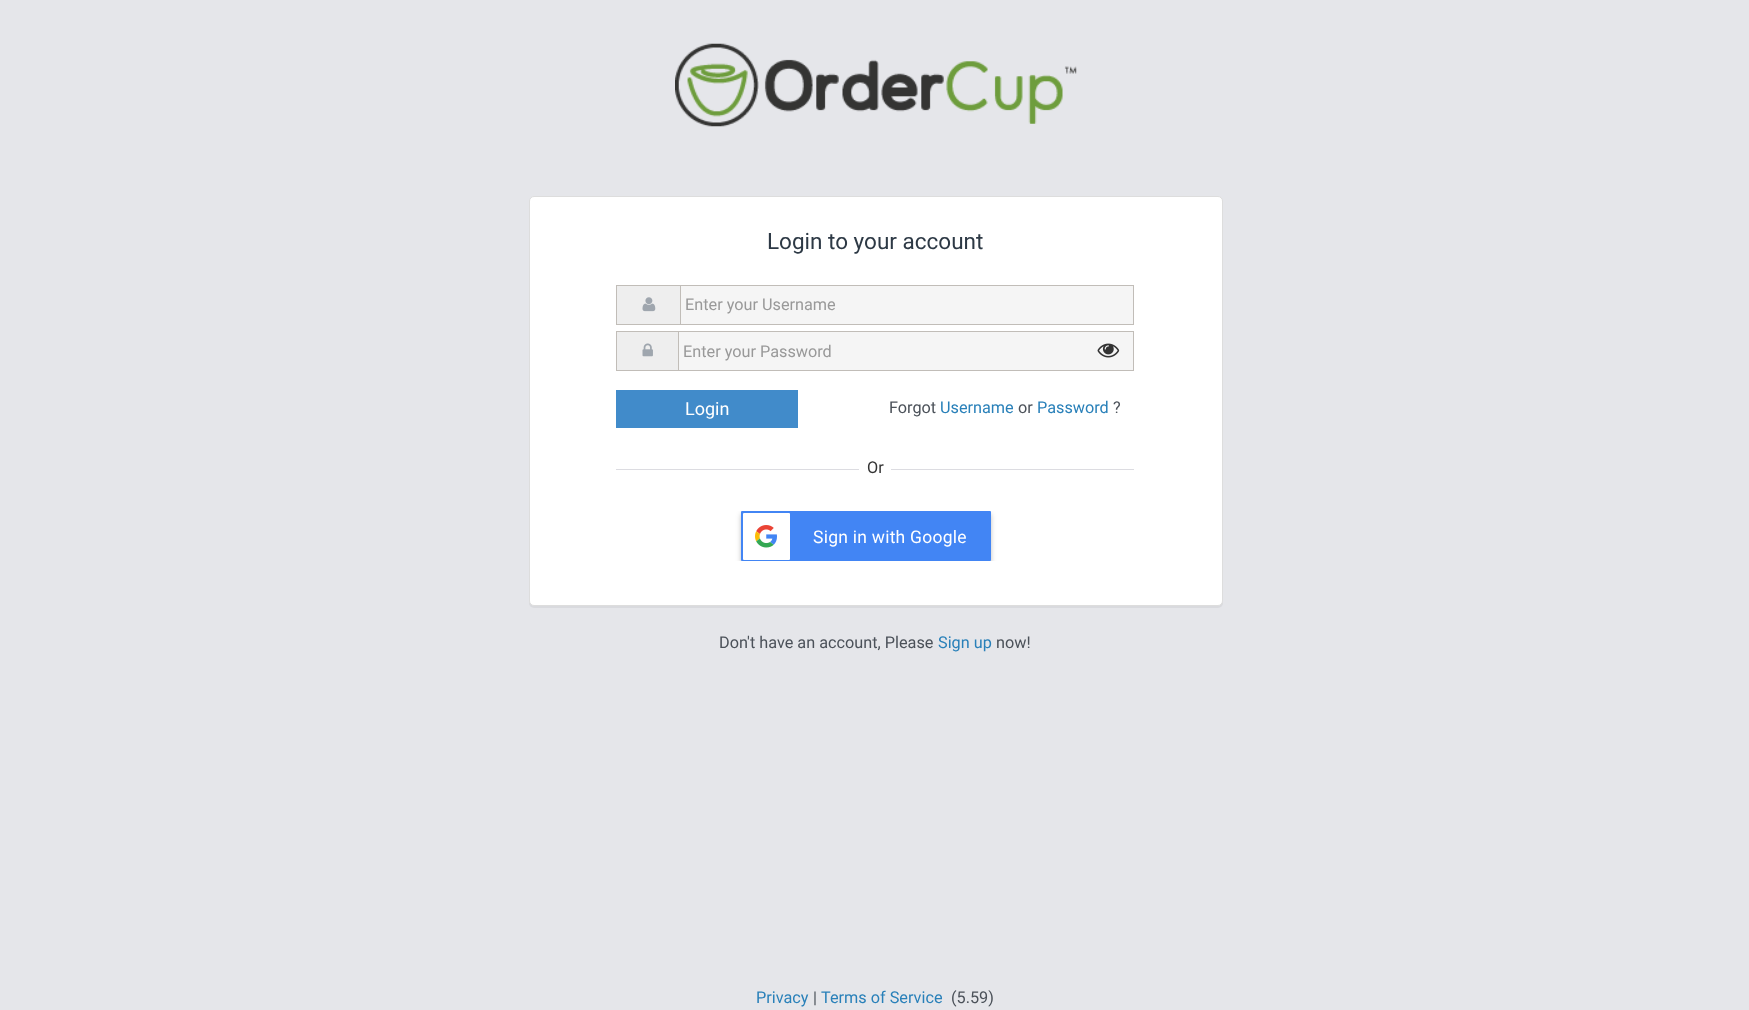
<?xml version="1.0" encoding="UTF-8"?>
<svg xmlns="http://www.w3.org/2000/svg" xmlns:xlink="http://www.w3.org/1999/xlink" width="1749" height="1010">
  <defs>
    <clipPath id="clip1"><rect x="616" y="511" width="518" height="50" /></clipPath>
  </defs>
  <rect width="100%" height="100%" fill="#e5e6ea" />
  <image x="675" y="43" width="402" height="84" xlink:href="image1.png" />
  <rect x="529" y="198" width="694" height="410" rx="5" fill="#000000" fill-opacity="0.05" filter="blur(0.5px)" />
  <rect x="529.5" y="196.5" width="693" height="409" rx="4.5" fill="#ffffff" stroke="#dddddd" />
  <rect x="617" y="286" width="63" height="38" fill="#eeeeee" />
  <rect x="616" y="285" width="64" height="1" fill="#c1bdb8" />
  <rect x="616" y="324" width="64" height="1" fill="#c1bdb8" />
  <rect x="616" y="285" width="1" height="40" fill="#c1bdb8" />
  <image x="642" y="297" width="14" height="15" xlink:href="image2.png" />
  <rect x="680.5" y="285.5" width="453" height="39" fill="#f5f5f5" stroke="#c1bdb8" />
  <rect x="617" y="332" width="61" height="38" fill="#eeeeee" />
  <rect x="616" y="331" width="62" height="1" fill="#c1bdb8" />
  <rect x="616" y="370" width="62" height="1" fill="#c1bdb8" />
  <rect x="616" y="331" width="1" height="40" fill="#c1bdb8" />
  <image x="642" y="343" width="11" height="14" xlink:href="image3.png" />
  <rect x="678.5" y="331.5" width="455" height="39" fill="#f5f5f5" stroke="#c1bdb8" />
  <image x="1097" y="343" width="23" height="15" xlink:href="image4.png" />
  <rect x="616" y="390" width="182" height="38" fill="#418bca" />
  <rect x="616" y="469" width="518" height="1" fill="#dcdce1" />
  <rect x="859" y="469" width="32" height="1" fill="#ffffff" />
  <g clip-path="url(#clip1)">
    <rect x="741" y="514" width="250" height="50" rx="1" fill="#000000" fill-opacity="0.25" filter="blur(2.5px)" />
  </g>
  <rect x="741" y="511" width="250" height="50" rx="1" fill="#4285f4" />
  <rect x="743" y="513" width="47" height="47" rx="1" fill="#ffffff" />
  <image x="755" y="525" width="22" height="23" xlink:href="image5.png" />
  <text x="767" y="249" style="font-family: Roboto; font-size: 22.5px; fill: #2d3945">Login to your account</text>
  <text x="685" y="310" style="font-family: Roboto; font-size: 16.25px; fill: #999999">Enter your Username</text>
  <text x="683" y="357" style="font-family: Roboto; font-size: 16.25px; fill: #999999">Enter your Password</text>
  <text x="685" y="415" style="font-family: Roboto; font-size: 18px; fill: #ffffff">Login</text>
  <text x="889" y="413" style="font-family: Roboto; font-size: 16.25px; fill: #4b5159">Forgot</text>
  <text x="940" y="413" style="font-family: Roboto; font-size: 16.25px; fill: #2980b9">Username</text>
  <text x="1018" y="413" style="font-family: Roboto; font-size: 16.25px; fill: #4b5159">or</text>
  <text x="1037" y="413" style="font-family: Roboto; font-size: 16.25px; fill: #2980b9">Password</text>
  <text x="1113" y="413" style="font-family: Roboto; font-size: 16.25px; fill: #4b5159">?</text>
  <text x="867" y="473" style="font-family: Roboto; font-size: 16.25px; fill: #333333">Or</text>
  <text x="813" y="543" style="font-family: Roboto; font-size: 17.5px; letter-spacing: 0.25px; fill: #ffffff">Sign in with Google</text>
  <text x="719" y="648" style="font-family: Roboto; font-size: 16.25px; fill: #4b5159">Don't have an account, Please</text>
  <text x="938" y="648" style="font-family: Roboto; font-size: 16.25px; fill: #2980b9">Sign up</text>
  <text x="996" y="648" style="font-family: Roboto; font-size: 16.25px; fill: #4b5159">now!</text>
  <text x="756" y="1003" style="font-family: Roboto; font-size: 16.25px; fill: #2980b9">Privacy</text>
  <text x="813" y="1003" style="font-family: Roboto; font-size: 16.25px; fill: #4b5159">|</text>
  <text x="821" y="1003" style="font-family: Roboto; font-size: 16.25px; fill: #2980b9">Terms of Service</text>
  <text x="951" y="1003" style="font-family: Roboto; font-size: 16.25px; fill: #4b5159">(5.59)</text>
</svg>
